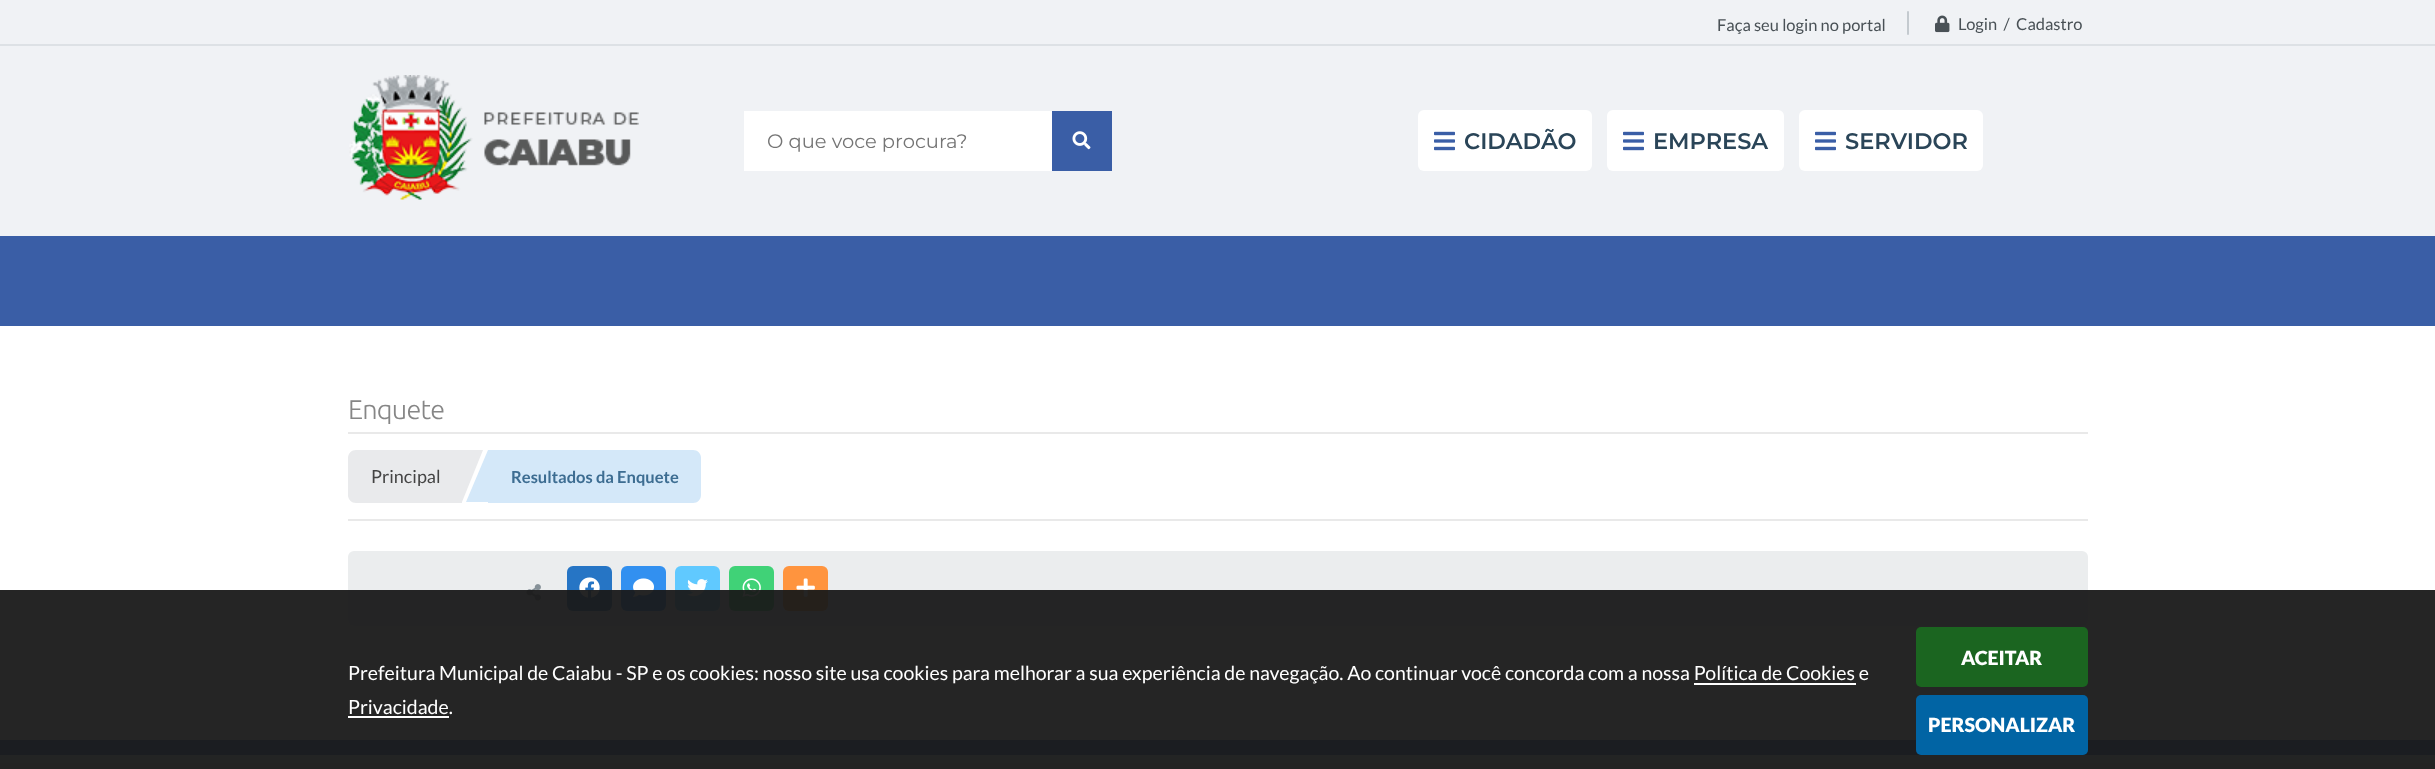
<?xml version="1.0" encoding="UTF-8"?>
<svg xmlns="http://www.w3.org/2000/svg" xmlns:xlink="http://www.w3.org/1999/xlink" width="2435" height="769">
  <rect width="100%" height="100%" fill="#ffffff" />
  <rect width="2435" height="44" fill="#f0f2f5" />
  <rect y="44" width="2435" height="2" fill="#dde1e5" />
  <rect x="1907" y="11" width="2" height="24" rx="1" fill="#c4cacf" />
  <image x="1935" y="15" width="15" height="18" xlink:href="image1.png" />
  <rect y="46" width="2435" height="190" fill="#f0f2f5" />
  <image x="349" y="75" width="290" height="125" xlink:href="image2.png" />
  <rect x="744" y="111" width="308" height="60" fill="#ffffff" />
  <rect x="1052" y="111" width="60" height="60" fill="#3a5ea6" />
  <image x="1072" y="131" width="19" height="19" xlink:href="image3.png" />
  <rect x="1418" y="110" width="174" height="61" rx="6" fill="#ffffff" />
  <image x="1434" y="131" width="21" height="20" xlink:href="image4.png" />
  <rect x="1607" y="110" width="177" height="61" rx="6" fill="#ffffff" />
  <image x="1623" y="131" width="21" height="20" xlink:href="image4.png" />
  <rect x="1799" y="110" width="184" height="61" rx="6" fill="#ffffff" />
  <image x="1815" y="131" width="21" height="20" xlink:href="image4.png" />
  <rect y="236" width="2435" height="90" fill="#3a5ea6" />
  <rect x="348" y="551" width="1740" height="75" rx="6" fill="#ebedee" />
  <image x="526" y="584" width="15" height="17" xlink:href="image5.png" />
  <rect x="567" y="566" width="45" height="45" rx="6" fill="#2675c5" />
  <image x="579" y="577" width="21" height="21" xlink:href="image6.png" />
  <rect x="621" y="566" width="45" height="45" rx="6" fill="#3290f0" />
  <image x="633" y="578" width="21" height="19" xlink:href="image7.png" />
  <rect x="675" y="566" width="45" height="45" rx="6" fill="#60c9ff" />
  <image x="687" y="579" width="21" height="18" xlink:href="image8.png" />
  <rect x="729" y="566" width="45" height="45" rx="6" fill="#40d277" />
  <image x="742" y="578" width="19" height="19" xlink:href="image9.png" />
  <rect x="783" y="566" width="45" height="45" rx="6" fill="#ff943e" />
  <image x="796" y="578" width="19" height="19" xlink:href="image10.png" />
  <rect y="755" width="2435" height="14" fill="#dadfe6" />
  <rect y="740" width="2435" height="15" fill="#3a5ea6" />
  <rect y="590" width="2435" height="179" fill="#191919" fill-opacity="0.95" />
  <rect x="1694" y="683" width="162" height="2" fill="#ffffff" />
  <rect x="348" y="716" width="101" height="2" fill="#ffffff" />
  <rect x="1916" y="627" width="172" height="60" rx="5" fill="#1b6520" />
  <rect x="1916" y="695" width="172" height="60" rx="5" fill="#0164a4" />
  <rect x="348" y="432" width="1740" height="2" fill="#e9e9e9" />
  <rect x="348" y="519" width="1740" height="2" fill="#e9e9e9" />
  <path d="M 356 450 h 106 v 53 h -106 c -4.5 0 -8 -3.5 -8 -8 v -37 c 0 -4.5 3.5 -8 8 -8 z" fill="#e9eaec" />
  <path d="M 462 450 h 21 l -21 52 z" fill="#e9eaec" />
  <path d="M 488 450 h 205 c 4.5 0 8 3.5 8 8 v 37 c 0 4.5 -3.5 8 -8 8 h -205 z" fill="#d4e8f9" />
  <path d="M 488 502 h -22 l 22 -52 z" fill="#d4e8f9" />
  <text x="1717" y="31" style="font-family: Lato; font-size: 16.5px; fill: #495156">Faça seu login no portal</text>
  <text x="1958" y="30" style="font-family: Lato; font-size: 16.5px; fill: #495156" xml:space="preserve">Login  /  Cadastro</text>
  <text x="767" y="148" style="font-family: Montserrat; font-size: 19.5px; fill: #757575">O que voce procura?</text>
  <text x="1464" y="149" style="font-family: Montserrat; font-size: 22.5px; font-weight: 600; fill: #2a4558">CIDADÃO</text>
  <text x="1653" y="149" style="font-family: Montserrat; font-size: 22.5px; font-weight: 600; fill: #2a4558">EMPRESA</text>
  <text x="1845" y="149" style="font-family: Montserrat; font-size: 22.5px; font-weight: 600; fill: #2a4558">SERVIDOR</text>
  <text x="348" y="680" style="font-family: Lato; font-size: 19.5px; fill: #ffffff">Prefeitura Municipal de Caiabu - SP e os cookies: nosso site usa cookies para melhorar a sua experiência de navegação. Ao continuar você concorda com a nossa Política de Cookies e</text>
  <text x="348" y="714" style="font-family: Lato; font-size: 19.5px; fill: #ffffff">Privacidade.</text>
  <text x="1961" y="665" style="font-family: Lato; font-size: 19.5px; font-weight: 900; fill: #ffffff">ACEITAR</text>
  <text x="1928" y="732" style="font-family: Lato; font-size: 19.5px; font-weight: 900; fill: #ffffff">PERSONALIZAR</text>
  <text x="348" y="419" style="font-family: Ubuntu; font-size: 27px; font-weight: 300; letter-spacing: -0.75px; fill: #868686">Enquete</text>
  <text x="371" y="483" style="font-family: Lato; font-size: 18px; fill: #444444">Principal</text>
  <text x="511" y="483" style="font-family: Lato; font-size: 16.5px; font-weight: bold; fill: #3d6d92">Resultados da Enquete</text>
</svg>
